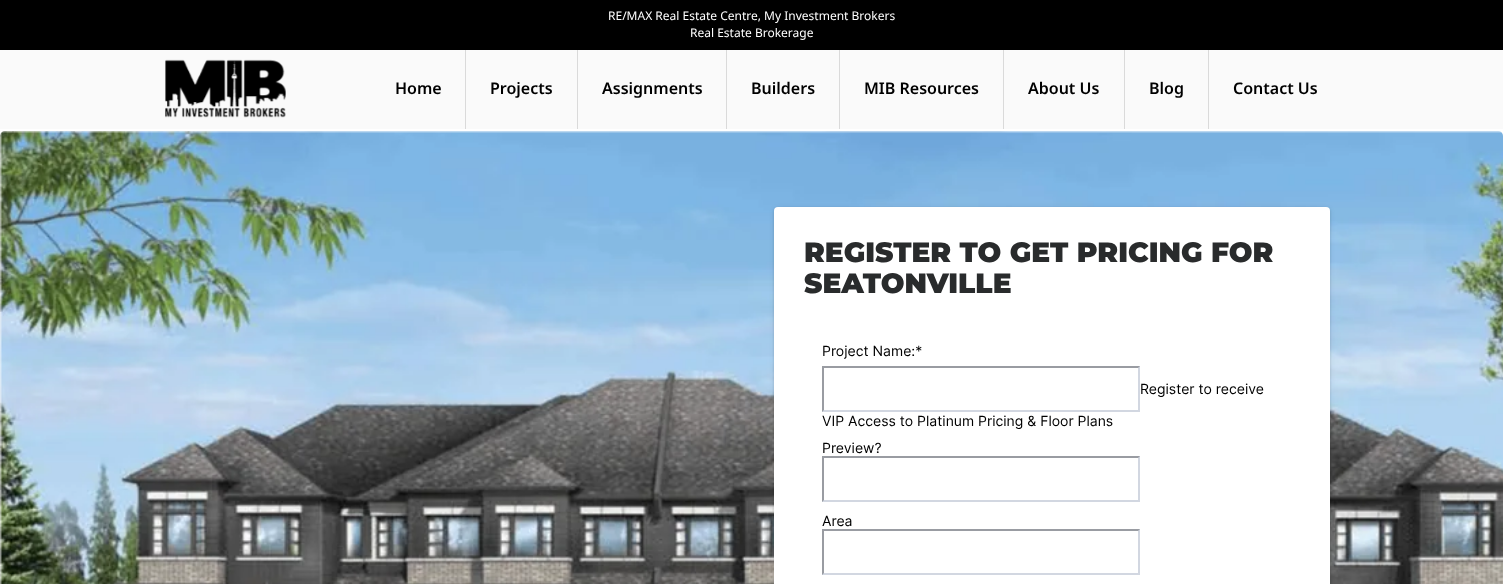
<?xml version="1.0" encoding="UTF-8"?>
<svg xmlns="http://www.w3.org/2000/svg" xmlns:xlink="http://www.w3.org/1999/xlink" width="1503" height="584">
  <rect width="100%" height="100%" fill="#ffffff" />
  <rect y="50" width="1503" height="79" fill="#fafafa" />
  <rect x="465" y="49" width="1" height="80" fill="#dadada" />
  <rect x="577" y="49" width="1" height="80" fill="#dadada" />
  <rect x="726" y="49" width="1" height="80" fill="#dadada" />
  <rect x="839" y="49" width="1" height="80" fill="#dadada" />
  <rect x="1003" y="49" width="1" height="80" fill="#dadada" />
  <rect x="1124" y="49" width="1" height="80" fill="#dadada" />
  <rect x="1208" y="49" width="1" height="80" fill="#dadada" />
  <rect width="1503" height="50" fill="#000000" />
  <image x="165" y="59" width="121" height="59" xlink:href="image1.png" />
  <image x="0" y="131" width="1503" height="453" xlink:href="image2.png" />
  <rect x="774" y="208" width="556" height="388" rx="4" fill="#000000" fill-opacity="0.08" filter="blur(2.5px)" />
  <rect x="774" y="208" width="556" height="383" rx="4" fill="#000000" fill-opacity="0.13" filter="blur(1px)" />
  <rect x="774" y="207" width="556" height="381" rx="4" fill="#ffffff" />
  <image x="822" y="345" width="442" height="230" xlink:href="image3.png" />
  <text x="608" y="20" style="font-family: Noto Sans; font-size: 12px; fill: #ffffff">RE/MAX Real Estate Centre, My Investment Brokers</text>
  <text x="690" y="37" style="font-family: Noto Sans; font-size: 12px; fill: #ffffff">Real Estate Brokerage</text>
  <text x="395" y="94" style="font-family: Noto Sans; font-size: 16px; font-weight: 600; fill: #000000">Home</text>
  <text x="490" y="94" style="font-family: Noto Sans; font-size: 16px; font-weight: 600; fill: #000000">Projects</text>
  <text x="602" y="94" style="font-family: Noto Sans; font-size: 16px; font-weight: 600; fill: #000000">Assignments</text>
  <text x="751" y="94" style="font-family: Noto Sans; font-size: 16px; font-weight: 600; fill: #000000">Builders</text>
  <text x="864" y="94" style="font-family: Noto Sans; font-size: 16px; font-weight: 600; fill: #000000">MIB Resources</text>
  <text x="1028" y="94" style="font-family: Noto Sans; font-size: 16px; font-weight: 600; fill: #000000">About Us</text>
  <text x="1149" y="94" style="font-family: Noto Sans; font-size: 16px; font-weight: 600; fill: #000000">Blog</text>
  <text x="1233" y="94" style="font-family: Noto Sans; font-size: 16px; font-weight: 600; fill: #000000">Contact Us</text>
  <text x="804" y="262" style="font-family: Montserrat; font-size: 28px; font-weight: 900; fill: #292b2c">REGISTER TO GET PRICING FOR</text>
  <text x="804" y="293" style="font-family: Montserrat; font-size: 28px; font-weight: 900; fill: #292b2c">SEATONVILLE</text>
</svg>
